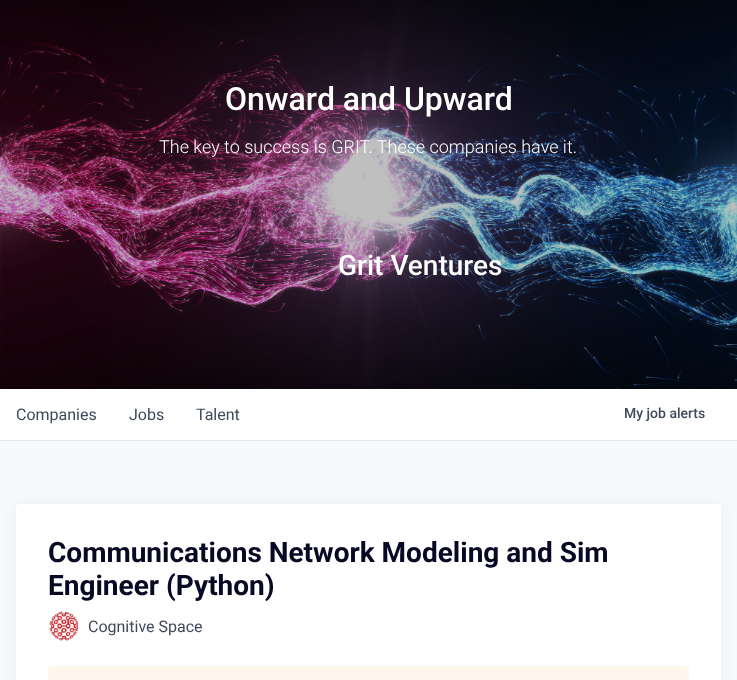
<?xml version="1.0" encoding="UTF-8"?>
<svg xmlns="http://www.w3.org/2000/svg" xmlns:xlink="http://www.w3.org/1999/xlink" width="737" height="680">
  <rect width="100%" height="100%" fill="#f7fafc" />
  <image x="0" y="0" width="737" height="389" xlink:href="image1.png" />
  <rect y="440" width="737" height="1" fill="#e5e5e5" />
  <rect y="389" width="737" height="51" fill="#ffffff" />
  <rect x="16" y="505" width="705" height="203" rx="4" fill="#1b2432" fill-opacity="0.06" filter="blur(8px)" />
  <rect x="16" y="504" width="705" height="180" rx="4" fill="#ffffff" />
  <image x="49" y="611" width="30" height="30" xlink:href="image2.png" />
  <rect x="48" y="666" width="641" height="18" rx="4" fill="#fef5ec" />
  <text x="225" y="110" style="font-family: Roboto; font-size: 32px; font-weight: 500; fill: #ffffff">Onward and Upward</text>
  <text x="159" y="153" style="font-family: Roboto; font-size: 18px; font-weight: 300; fill: #ffffff">The key to success is GRIT. These companies have it.</text>
  <text x="338" y="275" style="font-family: Roboto; font-size: 28px; font-weight: 500; fill: #ffffff">Grit Ventures</text>
  <text x="16" y="420" style="font-family: Roboto; font-size: 16px; fill: #3f495a">Companies</text>
  <text x="129" y="420" style="font-family: Roboto; font-size: 16px; fill: #3f495a">Jobs</text>
  <text x="196" y="420" style="font-family: Roboto; font-size: 16px; fill: #3f495a">Talent</text>
  <text x="624" y="418" style="font-family: Roboto; font-size: 14px; font-weight: 500; fill: #3f495a">My job alerts</text>
  <text x="48" y="562" style="font-family: Roboto; font-size: 28px; font-weight: bold; fill: #090925">Communications Network Modeling and Sim</text>
  <text x="48" y="595" style="font-family: Roboto; font-size: 28px; font-weight: bold; fill: #090925">Engineer (Python)</text>
  <text x="88" y="632" style="font-family: Roboto; font-size: 16px; fill: #3f495a">Cognitive Space</text>
</svg>
